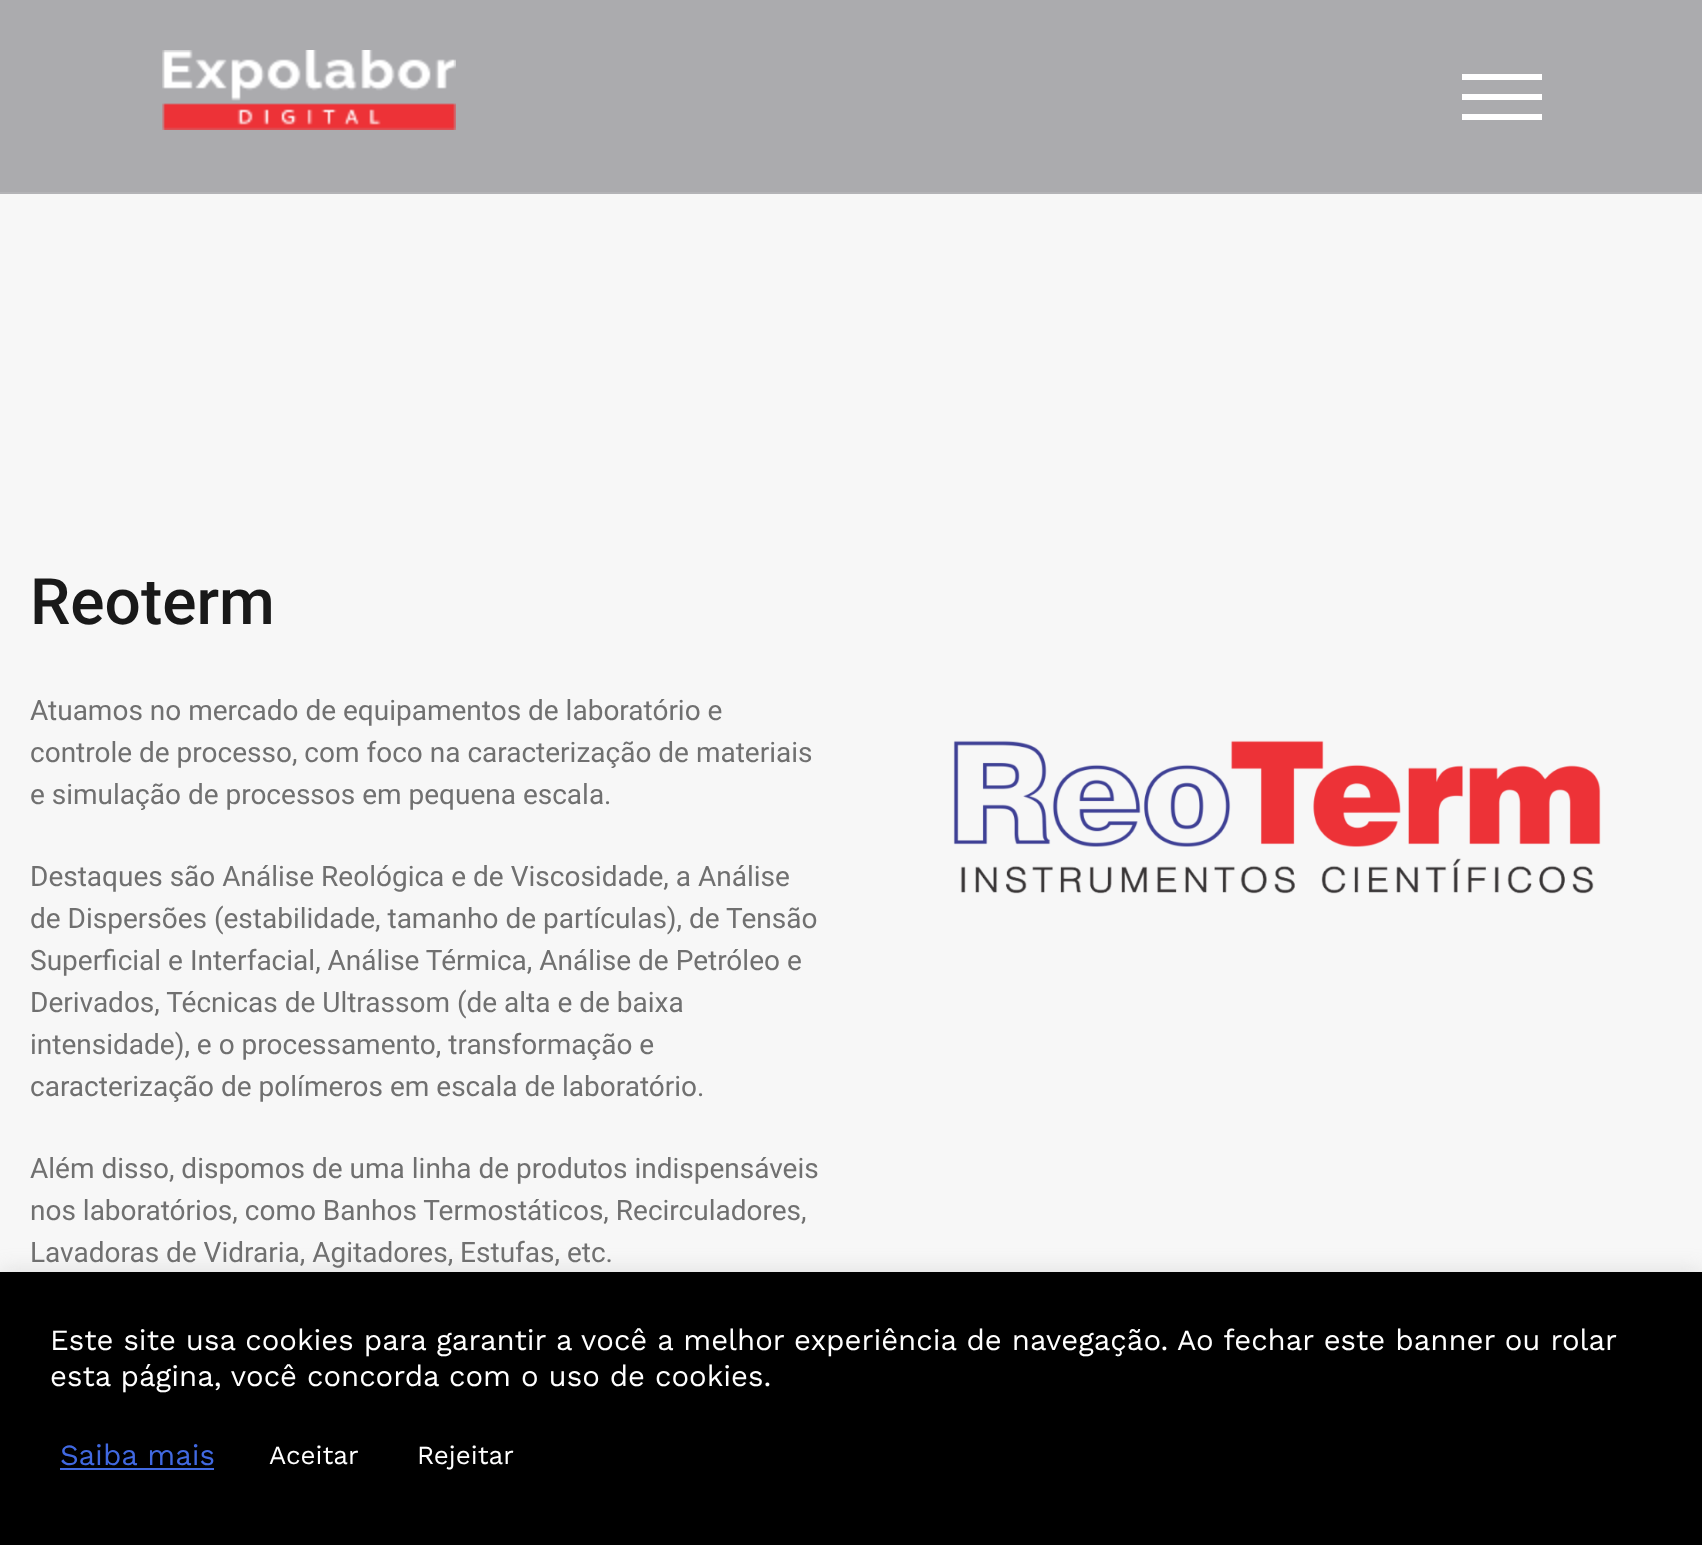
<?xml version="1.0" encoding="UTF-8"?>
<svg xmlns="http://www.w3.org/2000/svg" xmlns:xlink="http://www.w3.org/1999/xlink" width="1702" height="1545">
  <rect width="100%" height="100%" fill="#ababae" />
  <rect y="192" width="1702" height="2" fill="#b3b3b6" />
  <image x="162" y="50" width="294" height="80" xlink:href="image1.png" />
  <rect x="1462" y="94" width="80" height="6" fill="#ffffff" />
  <rect x="1462" y="74" width="80" height="6" fill="#ffffff" />
  <rect x="1462" y="114" width="80" height="6" fill="#ffffff" />
  <rect y="194" width="1702" height="1078" fill="#f7f7f7" />
  <image x="953" y="740" width="648" height="154" xlink:href="image2.png" />
  <rect y="1270" width="1702" height="274" fill="#acabab" fill-opacity="0.3" filter="blur(10px)" />
  <rect y="1272" width="1702" height="273" fill="#000000" />
  <rect x="60" y="1468" width="154" height="2" fill="#4169e1" />
  <text x="30" y="624" style="font-family: Roboto; font-size: 64px; font-weight: 500; fill: #191919">Reoterm</text>
  <text x="30" y="720" style="font-family: Roboto; font-size: 28px; fill: #707070">Atuamos no mercado de equipamentos de laboratório e</text>
  <text x="30" y="762" style="font-family: Roboto; font-size: 28px; fill: #707070">controle de processo, com foco na caracterização de materiais</text>
  <text x="30" y="804" style="font-family: Roboto; font-size: 28px; fill: #707070">e simulação de processos em pequena escala.</text>
  <text x="30" y="886" style="font-family: Roboto; font-size: 28px; fill: #707070">Destaques são Análise Reológica e de Viscosidade, a Análise</text>
  <text x="30" y="928" style="font-family: Roboto; font-size: 28px; fill: #707070">de Dispersões (estabilidade, tamanho de partículas), de Tensão</text>
  <text x="30" y="970" style="font-family: Roboto; font-size: 28px; fill: #707070">Superficial e Interfacial, Análise Térmica, Análise de Petróleo e</text>
  <text x="30" y="1012" style="font-family: Roboto; font-size: 28px; fill: #707070">Derivados, Técnicas de Ultrassom (de alta e de baixa</text>
  <text x="30" y="1054" style="font-family: Roboto; font-size: 28px; fill: #707070">intensidade), e o processamento, transformação e</text>
  <text x="30" y="1096" style="font-family: Roboto; font-size: 28px; fill: #707070">caracterização de polímeros em escala de laboratório.</text>
  <text x="30" y="1178" style="font-family: Roboto; font-size: 28px; fill: #707070">Além disso, dispomos de uma linha de produtos indispensáveis</text>
  <text x="30" y="1220" style="font-family: Roboto; font-size: 28px; fill: #707070">nos laboratórios, como Banhos Termostáticos, Recirculadores,</text>
  <text x="30" y="1262" style="font-family: Roboto; font-size: 28px; fill: #707070">Lavadoras de Vidraria, Agitadores, Estufas, etc.</text>
  <text x="50" y="1350" style="font-family: Work Sans; font-size: 29.33px; fill: #ffffff">Este site usa cookies para garantir a você a melhor experiência de navegação. Ao fechar este banner ou rolar</text>
  <text x="50" y="1386" style="font-family: Work Sans; font-size: 29.33px; fill: #ffffff">esta página, você concorda com o uso de cookies.</text>
  <text x="60" y="1465" style="font-family: Work Sans; font-size: 29.33px; fill: #4169e1">Saiba mais</text>
  <text x="269" y="1464" style="font-family: Work Sans; font-size: 26px; fill: #ffffff">Aceitar</text>
  <text x="417" y="1464" style="font-family: Work Sans; font-size: 26px; fill: #ffffff">Rejeitar</text>
</svg>
